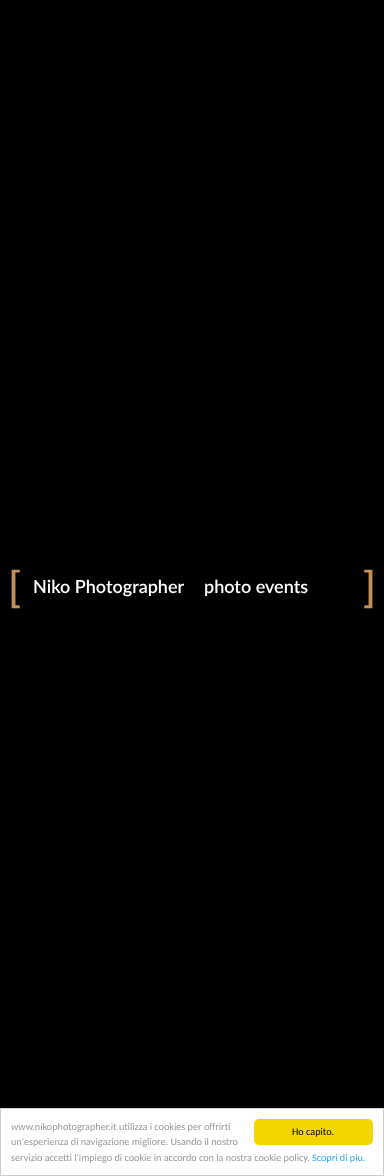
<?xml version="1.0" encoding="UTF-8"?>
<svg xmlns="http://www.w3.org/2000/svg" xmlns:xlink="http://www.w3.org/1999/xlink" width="384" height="1176">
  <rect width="100%" height="100%" fill="#000000" />
  <rect x="0.5" y="1108.5" width="383" height="67" fill="#ffffff" stroke="#cccccc" />
  <rect x="254" y="1119" width="119" height="26" rx="5" fill="#f1d600" />
  <text x="8" y="602" style="font-family: Lato; font-size: 42px; font-weight: 600; fill: #c48f56">[</text>
  <text x="33" y="593" style="font-family: Lato; font-size: 18px; font-weight: 600; fill: #ffffff">Niko Photographer</text>
  <text x="204" y="593" style="font-family: Lato; font-size: 18px; font-weight: 600; fill: #ffffff">photo events</text>
  <text x="363" y="602" style="font-family: Lato; font-size: 42px; font-weight: 600; fill: #c48f56">]</text>
  <text x="11" y="1130" style="font-family: Carlito; font-size: 10.2px; fill: #999999">www.nikophotographer.it utilizza i cookies per offrirti</text>
  <text x="11" y="1145" style="font-family: Carlito; font-size: 10.2px; fill: #999999">un'esperienza di navigazione migliore. Usando il nostro</text>
  <text x="11" y="1161" style="font-family: Carlito; font-size: 10.2px; fill: #999999">servizio accetti l'impiego di cookie in accordo con la nostra cookie policy.</text>
  <text x="312" y="1161" style="font-family: Carlito; font-size: 10.2px; fill: #31a8f0">Scopri di piu.</text>
  <text x="292" y="1135" style="font-family: Carlito; font-size: 10.2px; fill: #000000">Ho capito.</text>
</svg>
